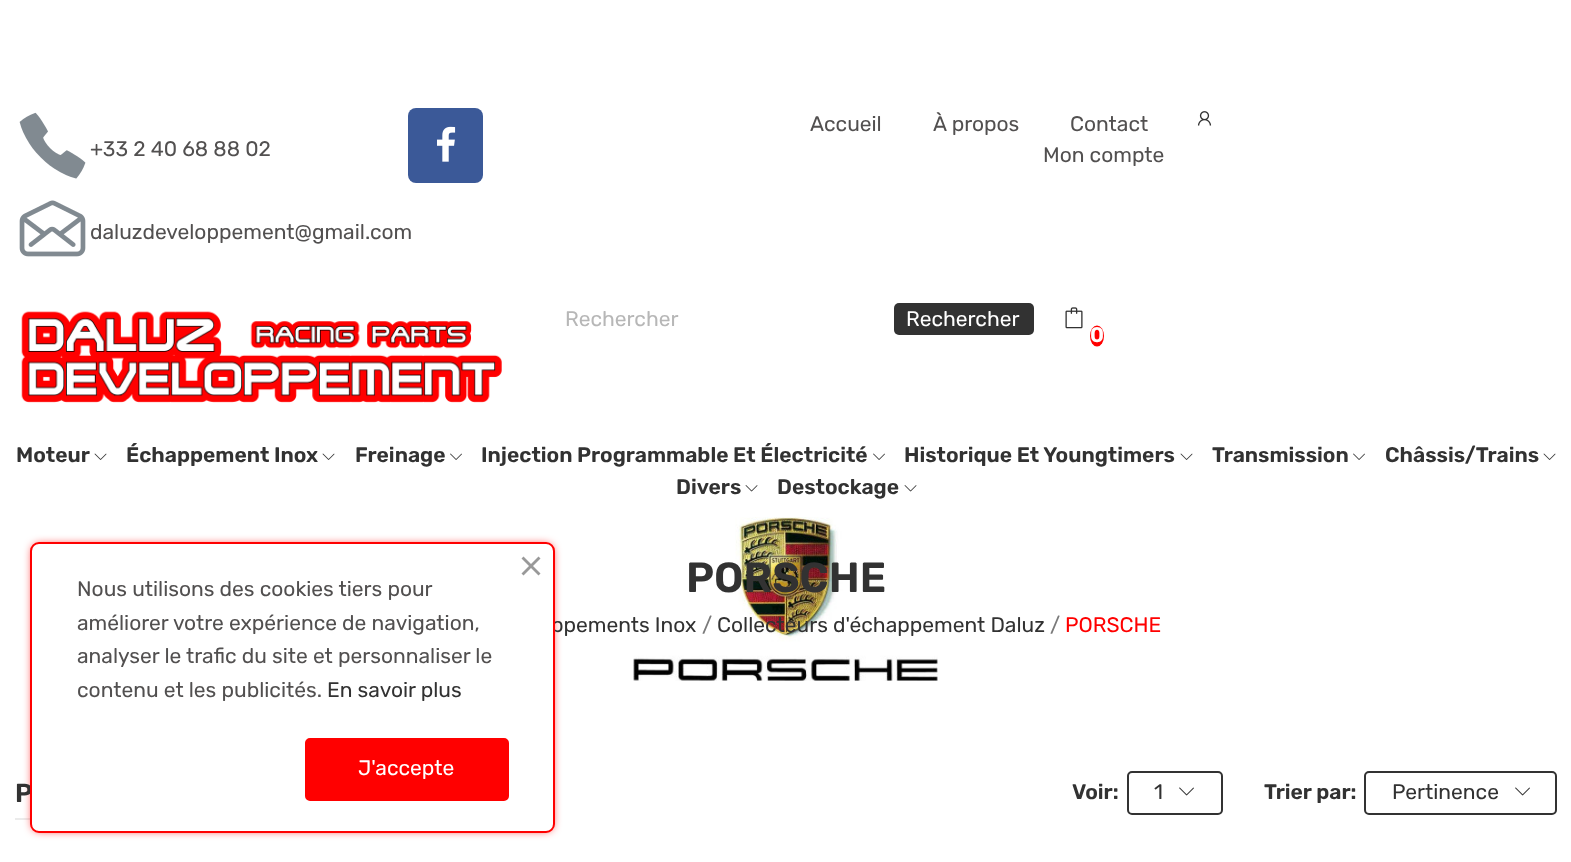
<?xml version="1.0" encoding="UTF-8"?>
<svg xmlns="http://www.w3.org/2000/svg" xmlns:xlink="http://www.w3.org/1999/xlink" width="1571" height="862">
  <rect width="100%" height="100%" fill="#ffffff" />
  <image x="19" y="112" width="67" height="67" xlink:href="image1.png" />
  <image x="19" y="200" width="67" height="57" xlink:href="image2.png" />
  <rect x="408" y="108" width="75" height="75" rx="8" fill="#3b5998" />
  <image x="437" y="126" width="19" height="36" xlink:href="image3.png" />
  <image x="1197" y="111" width="15" height="15" xlink:href="image4.png" />
  <image x="21" y="311" width="481" height="92" xlink:href="image5.png" />
  <rect x="894" y="303" width="140" height="32" rx="5" fill="#323232" />
  <image x="1065" y="307" width="18" height="22" xlink:href="image6.png" />
  <ellipse cx="1097" cy="336" rx="7" ry="10.5" fill="#ff0000" />
  <image x="94" y="453" width="13" height="7" xlink:href="image7.png" />
  <image x="322" y="453" width="13" height="7" xlink:href="image7.png" />
  <image x="450" y="453" width="12" height="7" xlink:href="image8.png" />
  <image x="873" y="453" width="12" height="7" xlink:href="image8.png" />
  <image x="1180" y="453" width="13" height="7" xlink:href="image7.png" />
  <image x="1353" y="453" width="12" height="7" xlink:href="image8.png" />
  <image x="1543" y="453" width="13" height="7" xlink:href="image7.png" />
  <image x="745" y="485" width="13" height="7" xlink:href="image9.png" />
  <image x="904" y="485" width="13" height="7" xlink:href="image9.png" />
  <image x="633" y="517" width="305" height="164" xlink:href="image10.png" />
  <rect x="15" y="818" width="15" height="2" fill="#ebebeb" />
  <rect x="1128" y="772" width="94" height="42" rx="4" fill="none" stroke="#323232" stroke-width="2" />
  <image x="1179" y="787" width="15" height="9" xlink:href="image11.png" />
  <rect x="1365" y="772" width="191" height="42" rx="4" fill="none" stroke="#323232" stroke-width="2" />
  <image x="1515" y="787" width="15" height="9" xlink:href="image11.png" />
  <rect x="33" y="545" width="519" height="285" rx="6" fill="#ff0000" filter="blur(5px)" />
  <text x="90" y="156" style="font-family: Rubik; font-size: 21px; fill: #525050">+33 2 40 68 88 02</text>
  <text x="90" y="239" style="font-family: Rubik; font-size: 21px; fill: #525050">daluzdeveloppement@gmail.com</text>
  <text x="810" y="131" style="font-family: Rubik; font-size: 21px; fill: #525050">Accueil</text>
  <text x="933" y="131" style="font-family: Rubik; font-size: 21px; fill: #525050">À propos</text>
  <text x="1070" y="131" style="font-family: Rubik; font-size: 21px; fill: #525050">Contact</text>
  <text x="1043" y="162" style="font-family: Rubik; font-size: 21px; fill: #525050">Mon compte</text>
  <text x="565" y="326" style="font-family: Rubik; font-size: 21px; fill: #b7b7b7">Rechercher</text>
  <text x="906" y="326" style="font-family: Rubik; font-size: 21px; fill: #ffffff">Rechercher</text>
  <text x="1090" y="342" style="font-family: Rubik; font-size: 21px; font-weight: 600; fill: #ffffff">0</text>
  <text x="16" y="462" style="font-family: Rubik; font-size: 21px; font-weight: 600; fill: #323232">Moteur</text>
  <text x="126" y="462" style="font-family: Rubik; font-size: 21px; font-weight: 600; fill: #323232">Échappement Inox</text>
  <text x="355" y="462" style="font-family: Rubik; font-size: 21px; font-weight: 600; fill: #323232">Freinage</text>
  <text x="481" y="462" style="font-family: Rubik; font-size: 21px; font-weight: 600; fill: #323232">Injection Programmable Et Électricité</text>
  <text x="904" y="462" style="font-family: Rubik; font-size: 21px; font-weight: 600; fill: #323232">Historique Et Youngtimers</text>
  <text x="1212" y="462" style="font-family: Rubik; font-size: 21px; font-weight: 600; fill: #323232">Transmission</text>
  <text x="1385" y="462" style="font-family: Rubik; font-size: 21px; font-weight: 600; fill: #323232">Châssis/Trains</text>
  <text x="676" y="494" style="font-family: Rubik; font-size: 21px; font-weight: 600; fill: #323232">Divers</text>
  <text x="777" y="494" style="font-family: Rubik; font-size: 21px; font-weight: 600; fill: #323232">Destockage</text>
  <text x="686" y="592" style="font-family: Rubik; font-size: 42px; font-weight: 600; fill: #323232">PORSCHE</text>
  <text x="551" y="632" style="font-family: Rubik; font-size: 21px; fill: #323232">ppements Inox</text>
  <text x="702" y="632" style="font-family: Rubik; font-size: 21px; fill: #7a7a7a">/</text>
  <text x="717" y="632" style="font-family: Rubik; font-size: 21px; fill: #323232">Collecteurs d'échappement Daluz</text>
  <text x="1050" y="632" style="font-family: Rubik; font-size: 21px; fill: #7a7a7a">/</text>
  <text x="1065" y="632" style="font-family: Rubik; font-size: 21px; fill: #ff0000">PORSCHE</text>
  <text x="15" y="802" style="font-family: Rubik; font-size: 26px; font-weight: 600; fill: #323232">P</text>
  <text x="1072" y="799" style="font-family: Rubik; font-size: 21px; font-weight: 600; fill: #323232">Voir:</text>
  <text x="1154" y="799" style="font-family: Rubik; font-size: 21px; fill: #323232">1</text>
  <text x="1264" y="799" style="font-family: Rubik; font-size: 21px; font-weight: 600; fill: #323232">Trier par:</text>
  <text x="1392" y="799" style="font-family: Rubik; font-size: 21px; fill: #323232">Pertinence</text>
  <rect x="31" y="543" width="523" height="289" rx="8" fill="#ffffff" stroke="#ff0000" stroke-width="2" />
  <path d="M 521.5 573.5 l 17 -17 l 2 2 l -17 17 z" fill="#999999" />
  <path d="M 523.5 556.5 l 17 17 l -2 2 l -17 -17 z" fill="#999999" />
  <text x="77" y="596" style="font-family: Rubik; font-size: 21px; fill: #525050">Nous utilisons des cookies tiers pour</text>
  <text x="77" y="630" style="font-family: Rubik; font-size: 21px; fill: #525050">améliorer votre expérience de navigation,</text>
  <text x="77" y="663" style="font-family: Rubik; font-size: 21px; fill: #525050">analyser le trafic du site et personnaliser le</text>
  <text x="77" y="697" style="font-family: Rubik; font-size: 21px; fill: #525050">contenu et les publicités.</text>
  <text x="327" y="697" style="font-family: Rubik; font-size: 21px; fill: #323232">En savoir plus</text>
  <rect x="306" y="739" width="202" height="61" rx="4" fill="#ff0000" stroke="#ff0000" stroke-width="2" />
  <text x="358" y="775" style="font-family: Rubik; font-size: 21px; fill: #ffffff">J'accepte</text>
</svg>
